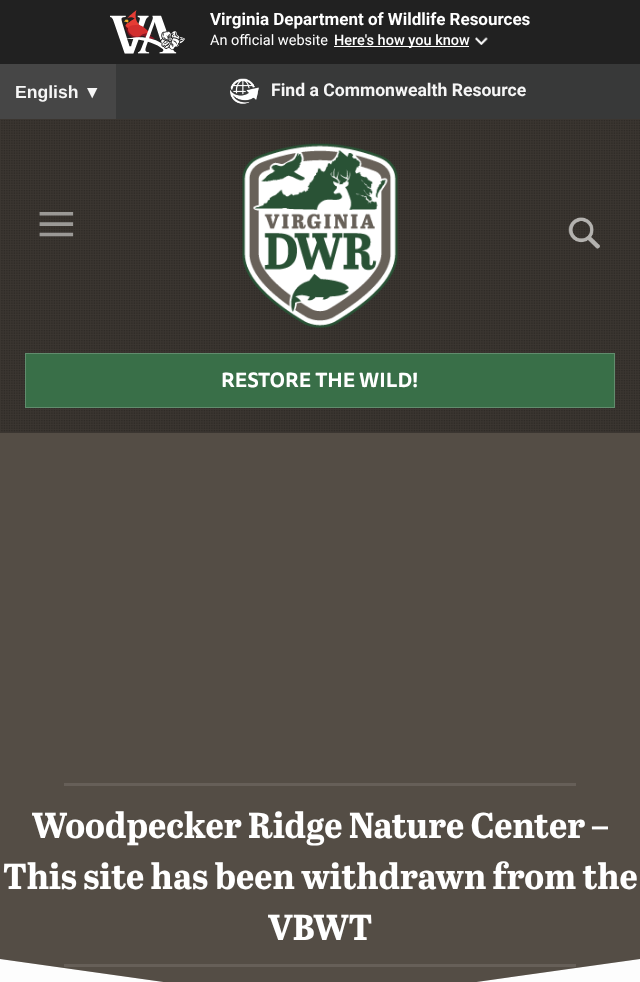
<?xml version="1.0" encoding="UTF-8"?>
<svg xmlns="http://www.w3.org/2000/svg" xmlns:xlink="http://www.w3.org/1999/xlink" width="640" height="982">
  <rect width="100%" height="100%" fill="#fdfdfd" />
  <rect width="640" height="64" fill="#212121" />
  <image x="110" y="10" width="75" height="44" xlink:href="image1.png" />
  <rect x="334" y="46" width="135" height="1" fill="#ffffff" />
  <image x="475" y="37" width="13" height="8" xlink:href="image2.png" />
  <rect y="64" width="116" height="55" fill="#464646" />
  <rect x="116" y="64" width="524" height="55" fill="#383939" />
  <image x="230" y="78" width="29" height="26" xlink:href="image3.png" />
  <path d="M 640 119 h -640 v 840 l 320 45 l 320 -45 z" fill="#6a6157" />
  <path d="M 640 119 h -640 v 840 l 320 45 l 320 -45 z" fill="#000000" fill-opacity="0.2" />
  <rect y="119" width="640" height="314" fill="#3b3631" />
  <image x="1" y="120" width="639" height="312" xlink:href="image4.png" />
  <image x="242" y="143" width="156" height="185" xlink:href="image5.png" />
  <image x="568" y="217" width="32" height="32" xlink:href="image6.png" />
  <rect x="25.5" y="353.5" width="589" height="54" fill="#396f48" stroke="#618c6d" />
  <rect x="64" y="783" width="512" height="3" fill="#665f58" />
  <rect x="64" y="964" width="512" height="3" fill="#665f58" />
  <text x="210" y="25" style="font-family: Roboto; font-size: 17px; font-weight: bold; fill: #ffffff">Virginia Department of Wildlife Resources</text>
  <text x="210" y="45" style="font-family: Roboto; font-size: 14.5px; fill: #ffffff">An official website</text>
  <text x="334" y="45" style="font-family: Roboto; font-size: 14.5px; font-weight: 500; fill: #ffffff">Here's how you know</text>
  <text x="15" y="98" style="font-family: Liberation Sans; font-size: 17.6px; font-weight: bold; fill: #f6f6f6">English ▼</text>
  <text x="271" y="96" style="font-family: Roboto; font-size: 17.6px; font-weight: bold; fill: #f6f6f6">Find a Commonwealth Resource</text>
  <text x="36" y="248" style="font-family: Liberation Serif; font-size: 72px; fill: #9b9996">≡</text>
  <text x="221" y="387" style="font-family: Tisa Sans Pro; font-size: 20px; font-weight: bold; fill: #ffffff">RESTORE THE WILD!</text>
  <text x="32" y="838" style="font-family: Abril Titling; font-size: 36px; font-weight: bold; fill: #ffffff">Woodpecker Ridge Nature Center –</text>
  <text x="3" y="889" style="font-family: Abril Titling; font-size: 36px; font-weight: bold; fill: #ffffff">This site has been withdrawn from the</text>
  <text x="268" y="940" style="font-family: Abril Titling; font-size: 36px; font-weight: bold; fill: #ffffff">VBWT</text>
</svg>
